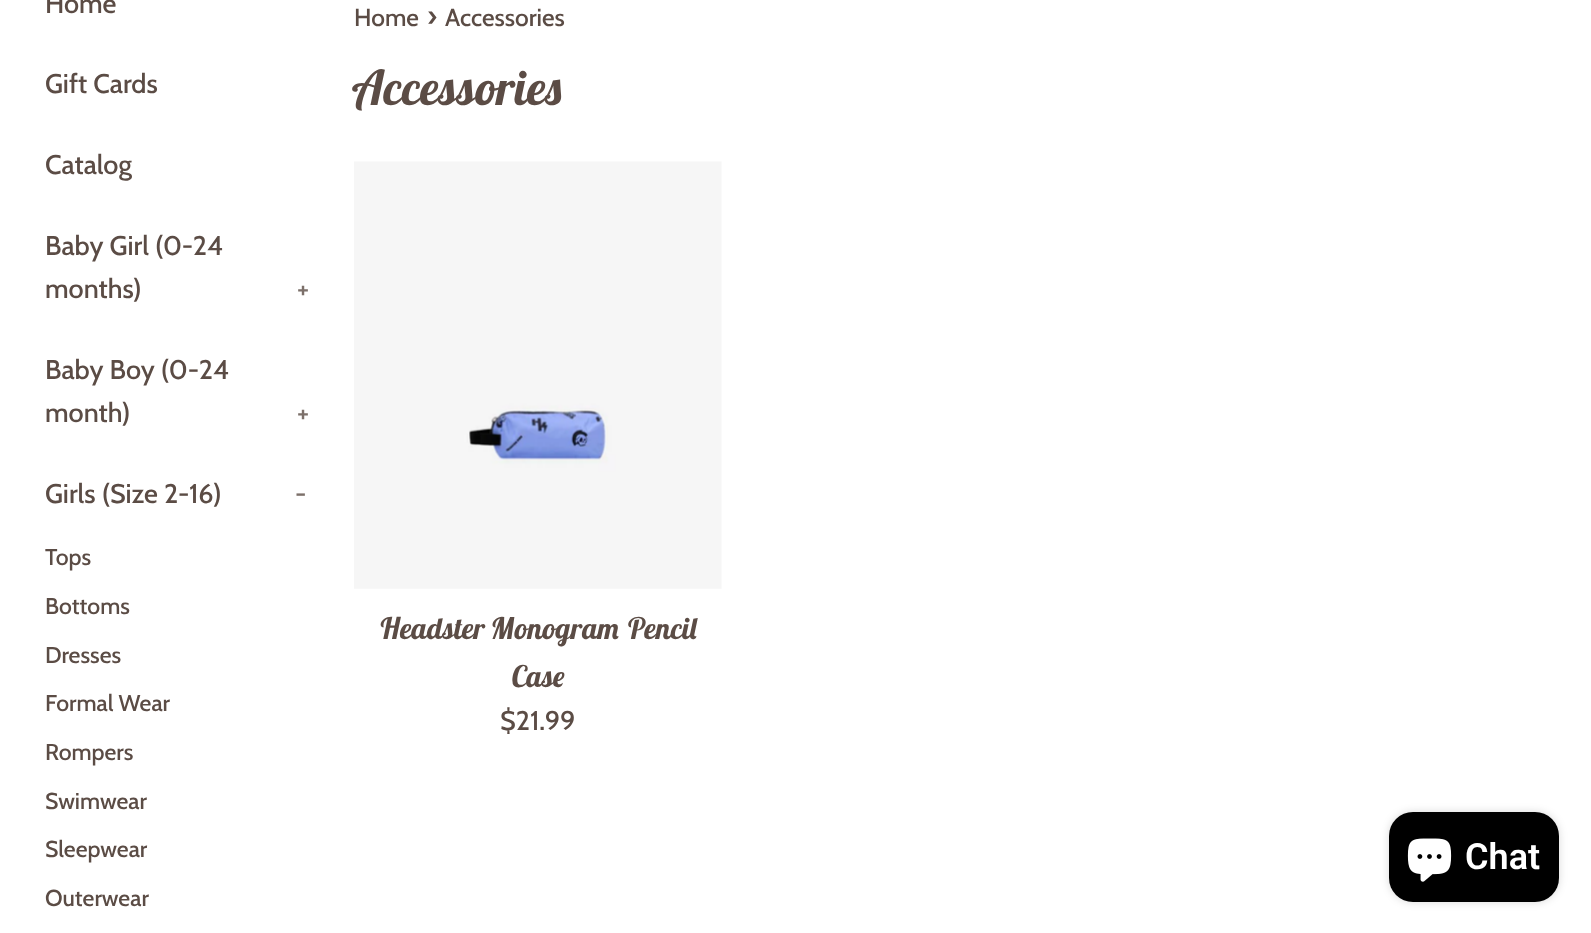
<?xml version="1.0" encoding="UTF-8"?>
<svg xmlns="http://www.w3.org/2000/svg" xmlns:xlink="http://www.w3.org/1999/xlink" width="1591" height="933">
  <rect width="100%" height="100%" fill="#ffffff" />
  <image x="354" y="161" width="368" height="428" xlink:href="image1.png" />
  <rect x="1389" y="812" width="170" height="90" rx="24" fill="#000000" fill-opacity="0.15" filter="blur(4px)" />
  <rect x="1389" y="812" width="170" height="90" rx="24" fill="#000000" />
  <image x="1407" y="838" width="45" height="44" xlink:href="image2.png" />
  <text x="45" y="13" style="font-family: Cabin; font-size: 27px; font-weight: 500; fill: #5b4c45">Home</text>
  <text x="45" y="93" style="font-family: Cabin; font-size: 27px; font-weight: 500; fill: #5b4c45">Gift Cards</text>
  <text x="45" y="174" style="font-family: Cabin; font-size: 27px; font-weight: 500; fill: #5b4c45">Catalog</text>
  <text x="45" y="255" style="font-family: Cabin; font-size: 27px; font-weight: 500; fill: #5b4c45">Baby Girl (0-24</text>
  <text x="45" y="298" style="font-family: Cabin; font-size: 27px; font-weight: 500; fill: #5b4c45">months)</text>
  <text x="297" y="298" style="font-family: Cabin; font-size: 27px; font-weight: 500; fill: #7c706a">+</text>
  <text x="45" y="379" style="font-family: Cabin; font-size: 27px; font-weight: 500; fill: #5b4c45">Baby Boy (0-24</text>
  <text x="45" y="422" style="font-family: Cabin; font-size: 27px; font-weight: 500; fill: #5b4c45">month)</text>
  <text x="297" y="422" style="font-family: Cabin; font-size: 27px; font-weight: 500; fill: #7c706a">+</text>
  <text x="45" y="503" style="font-family: Cabin; font-size: 27px; font-weight: 500; fill: #5b4c45">Girls (Size 2-16)</text>
  <text x="295" y="503" style="font-family: Cabin; font-size: 27px; font-weight: 500; fill: #7c706a">-</text>
  <text x="45" y="565" style="font-family: Cabin; font-size: 23px; font-weight: 500; fill: #5b4c45">Tops</text>
  <text x="45" y="614" style="font-family: Cabin; font-size: 23px; font-weight: 500; fill: #5b4c45">Bottoms</text>
  <text x="45" y="663" style="font-family: Cabin; font-size: 23px; font-weight: 500; fill: #5b4c45">Dresses</text>
  <text x="45" y="711" style="font-family: Cabin; font-size: 23px; font-weight: 500; fill: #5b4c45">Formal Wear</text>
  <text x="45" y="760" style="font-family: Cabin; font-size: 23px; font-weight: 500; fill: #5b4c45">Rompers</text>
  <text x="45" y="809" style="font-family: Cabin; font-size: 23px; font-weight: 500; fill: #5b4c45">Swimwear</text>
  <text x="45" y="857" style="font-family: Cabin; font-size: 23px; font-weight: 500; fill: #5b4c45">Sleepwear</text>
  <text x="45" y="906" style="font-family: Cabin; font-size: 23px; font-weight: 500; fill: #5b4c45">Outerwear</text>
  <text x="354" y="26" style="font-family: Cabin; font-size: 24.5px; font-weight: 500; fill: #5b4c45">Home</text>
  <text x="427" y="26" style="font-family: Cabin; font-size: 29.75px; font-weight: 500; fill: #5b4c45">›</text>
  <text x="445" y="26" style="font-family: Cabin; font-size: 24.5px; font-weight: 500; fill: #5b4c45">Accessories</text>
  <text x="354" y="105" style="font-family: Lobster Two; font-size: 48px; font-weight: bold; font-style: italic; fill: #5b4c45">Accessories</text>
  <text x="379" y="639" style="font-family: Lobster Two; font-size: 29.75px; font-weight: bold; font-style: italic; fill: #5b4c45">Headster Monogram Pencil</text>
  <text x="511" y="687" style="font-family: Lobster Two; font-size: 29.75px; font-weight: bold; font-style: italic; fill: #5b4c45">Case</text>
  <text x="500" y="730" style="font-family: Cabin; font-size: 27px; font-weight: 500; fill: #5b4c45">$21.99</text>
  <text x="1465" y="869" style="font-family: Roboto; font-size: 36px; font-weight: 600; fill: #ffffff">Chat</text>
</svg>
